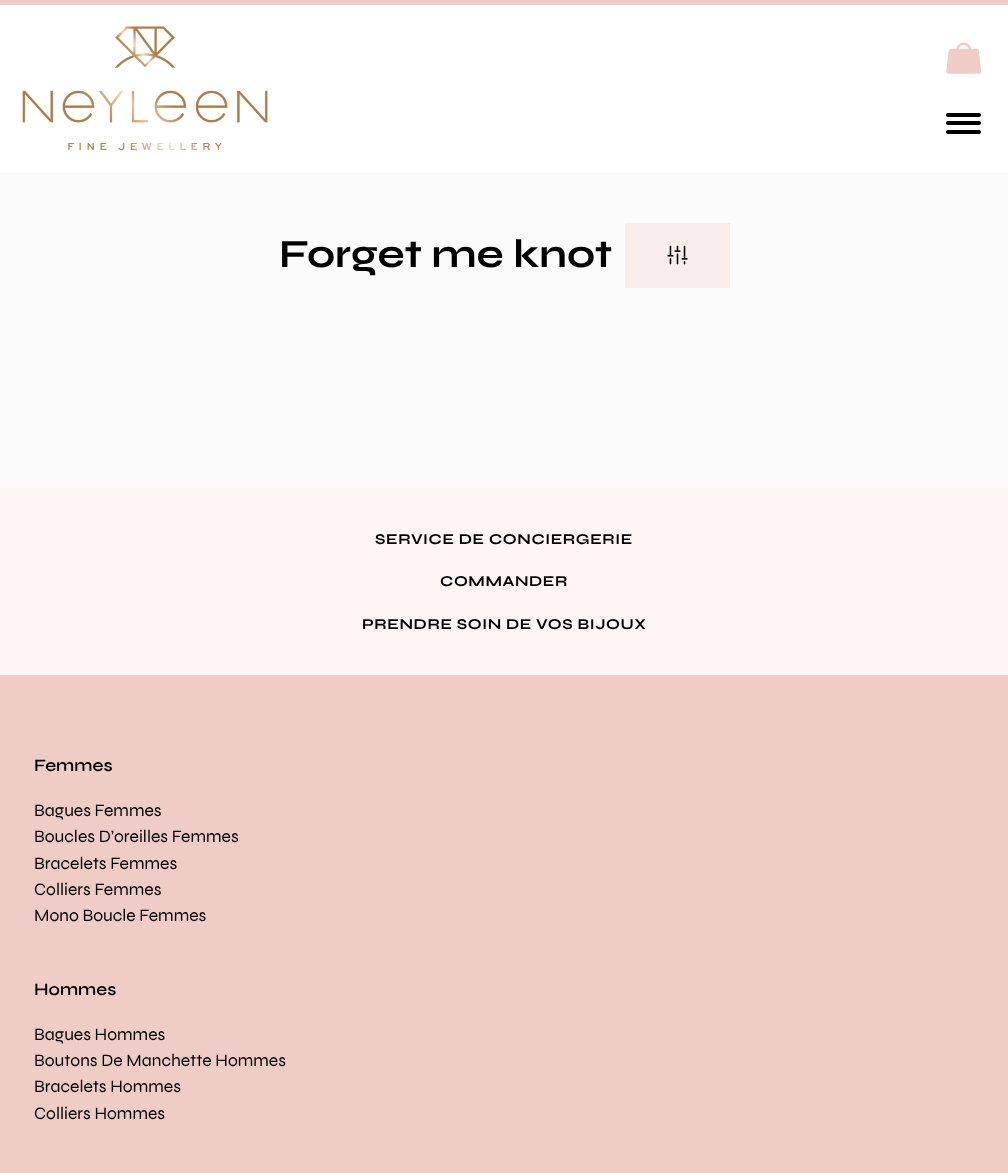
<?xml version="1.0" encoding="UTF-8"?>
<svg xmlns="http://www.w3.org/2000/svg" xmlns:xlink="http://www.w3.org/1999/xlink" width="1008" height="1173">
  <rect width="100%" height="100%" fill="#ffffff" />
  <rect width="1008" height="5" fill="#efccc6" />
  <image x="22" y="26" width="246" height="125" xlink:href="image1.png" />
  <image x="946" y="42" width="35" height="32" xlink:href="image2.png" />
  <rect x="946" y="113" width="35" height="4" rx="2" fill="#000000" />
  <rect x="946" y="121" width="35" height="4" rx="2" fill="#000000" />
  <rect x="946" y="130" width="35" height="4" rx="2" fill="#000000" />
  <rect y="173" width="1008" height="315" fill="#fbfbfb" />
  <rect x="625" y="223" width="105" height="65" fill="#f9edeb" />
  <image x="667" y="245" width="21" height="20" xlink:href="image3.png" />
  <rect y="488" width="1008" height="187" fill="#fff5f5" />
  <rect y="675" width="1008" height="498" fill="#efccc6" />
  <text x="279" y="267" style="font-family: Syne; font-size: 40px; font-weight: bold; fill: #000000">Forget me knot</text>
  <text x="375" y="544" style="font-family: Syne; font-size: 15px; font-weight: bold; letter-spacing: 0.6px; fill: #000000">SERVICE DE CONCIERGERIE</text>
  <text x="440" y="586" style="font-family: Syne; font-size: 15px; font-weight: bold; letter-spacing: 0.6px; fill: #000000">COMMANDER</text>
  <text x="362" y="629" style="font-family: Syne; font-size: 15px; font-weight: bold; letter-spacing: 0.6px; fill: #000000">PRENDRE SOIN DE VOS BIJOUX</text>
  <text x="34" y="771" style="font-family: Syne; font-size: 17.5px; font-weight: 600; fill: #000000">Femmes</text>
  <text x="34" y="816" style="font-family: Syne; font-size: 17.5px; fill: #000000">Bagues Femmes</text>
  <text x="34" y="842" style="font-family: Syne; font-size: 17.5px; fill: #000000">Boucles D’oreilles Femmes</text>
  <text x="34" y="869" style="font-family: Syne; font-size: 17.5px; fill: #000000">Bracelets Femmes</text>
  <text x="34" y="895" style="font-family: Syne; font-size: 17.5px; fill: #000000">Colliers Femmes</text>
  <text x="34" y="921" style="font-family: Syne; font-size: 17.5px; fill: #000000">Mono Boucle Femmes</text>
  <text x="34" y="995" style="font-family: Syne; font-size: 17.5px; font-weight: 600; fill: #000000">Hommes</text>
  <text x="34" y="1040" style="font-family: Syne; font-size: 17.5px; fill: #000000">Bagues Hommes</text>
  <text x="34" y="1066" style="font-family: Syne; font-size: 17.5px; fill: #000000">Boutons De Manchette Hommes</text>
  <text x="34" y="1092" style="font-family: Syne; font-size: 17.5px; fill: #000000">Bracelets Hommes</text>
  <text x="34" y="1119" style="font-family: Syne; font-size: 17.5px; fill: #000000">Colliers Hommes</text>
</svg>
